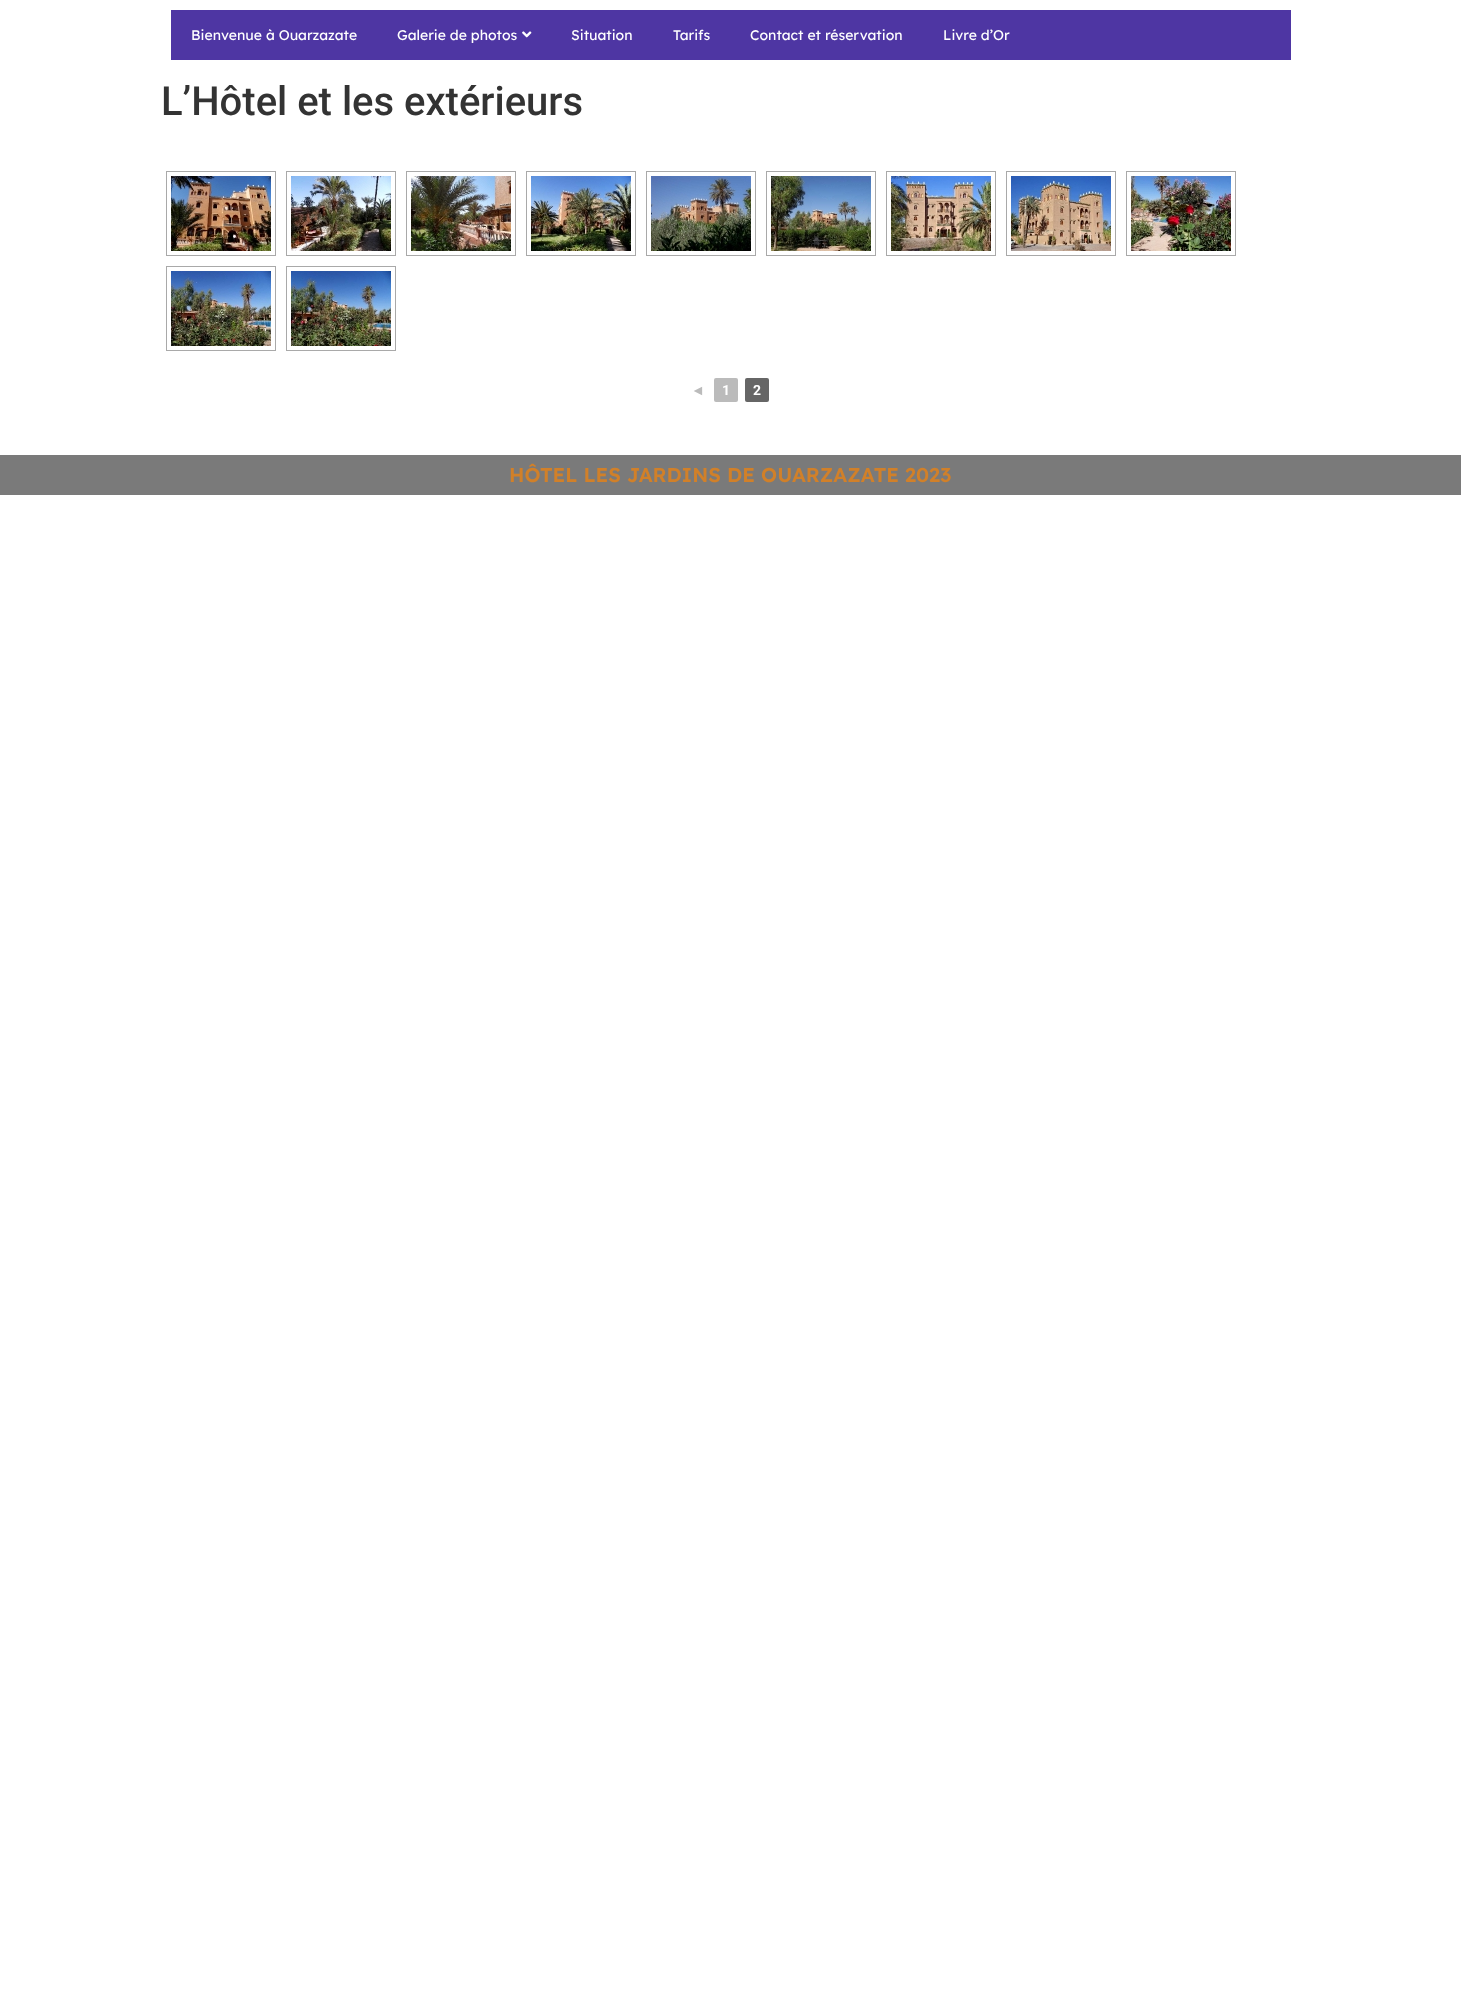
<?xml version="1.0" encoding="UTF-8"?>
<svg xmlns="http://www.w3.org/2000/svg" xmlns:xlink="http://www.w3.org/1999/xlink" width="1461" height="2013">
  <rect width="100%" height="100%" fill="#ffffff" />
  <rect x="171" y="10" width="1120" height="50" fill="#4e36a3" />
  <image x="522" y="31" width="10" height="7" xlink:href="image1.png" />
  <rect x="166.5" y="171.5" width="109" height="84" fill="none" stroke="#a9a9a9" />
  <image x="171" y="176" width="100" height="75" xlink:href="image2.png" />
  <rect x="286.5" y="171.5" width="109" height="84" fill="none" stroke="#a9a9a9" />
  <image x="291" y="176" width="100" height="75" xlink:href="image3.png" />
  <rect x="406.5" y="171.5" width="109" height="84" fill="none" stroke="#a9a9a9" />
  <image x="411" y="176" width="100" height="75" xlink:href="image4.png" />
  <rect x="526.5" y="171.5" width="109" height="84" fill="none" stroke="#a9a9a9" />
  <image x="531" y="176" width="100" height="75" xlink:href="image5.png" />
  <rect x="646.5" y="171.5" width="109" height="84" fill="none" stroke="#a9a9a9" />
  <image x="651" y="176" width="100" height="75" xlink:href="image6.png" />
  <rect x="766.5" y="171.5" width="109" height="84" fill="none" stroke="#a9a9a9" />
  <image x="771" y="176" width="100" height="75" xlink:href="image7.png" />
  <rect x="886.5" y="171.5" width="109" height="84" fill="none" stroke="#a9a9a9" />
  <image x="891" y="176" width="100" height="75" xlink:href="image8.png" />
  <rect x="1006.5" y="171.5" width="109" height="84" fill="none" stroke="#a9a9a9" />
  <image x="1011" y="176" width="100" height="75" xlink:href="image9.png" />
  <rect x="1126.5" y="171.5" width="109" height="84" fill="none" stroke="#a9a9a9" />
  <image x="1131" y="176" width="100" height="75" xlink:href="image10.png" />
  <rect x="166.5" y="266.5" width="109" height="84" fill="none" stroke="#a9a9a9" />
  <image x="171" y="271" width="100" height="75" xlink:href="image11.png" />
  <rect x="286.5" y="266.5" width="109" height="84" fill="none" stroke="#a9a9a9" />
  <image x="291" y="271" width="100" height="75" xlink:href="image12.png" />
  <rect x="714" y="378" width="24" height="24" rx="2" fill="#bbbbbb" />
  <rect x="745" y="378" width="24" height="24" rx="2" fill="#666666" />
  <rect y="455" width="1461" height="40" fill="#7a7a7a" />
  <text x="191" y="40" style="font-family: Lexend; font-size: 14px; fill: #ffffff">Bienvenue à Ouarzazate</text>
  <text x="397" y="40" style="font-family: Lexend; font-size: 14px; fill: #ffffff">Galerie de photos</text>
  <text x="571" y="40" style="font-family: Lexend; font-size: 14px; fill: #ffffff">Situation</text>
  <text x="673" y="40" style="font-family: Lexend; font-size: 14px; fill: #ffffff">Tarifs</text>
  <text x="750" y="40" style="font-family: Lexend; font-size: 14px; fill: #ffffff">Contact et réservation</text>
  <text x="943" y="40" style="font-family: Lexend; font-size: 14px; fill: #ffffff">Livre d’Or</text>
  <text x="161" y="115" style="font-family: Roboto; font-size: 40px; font-weight: 500; fill: #333333">L’Hôtel et les extérieurs</text>
  <text x="691" y="395" style="font-family: Liberation Sans; font-size: 14px; font-weight: bold; fill: #bbbbbb">◄</text>
  <text x="722" y="395" style="font-family: Roboto; font-size: 14px; font-weight: bold; fill: #ffffff">1</text>
  <text x="753" y="395" style="font-family: Roboto; font-size: 14px; font-weight: bold; fill: #ffffff">2</text>
  <text x="509" y="482" style="font-family: Lexend; font-size: 20px; font-weight: 600; fill: #d18029">HÔTEL LES JARDINS DE OUARZAZATE 2023</text>
</svg>
